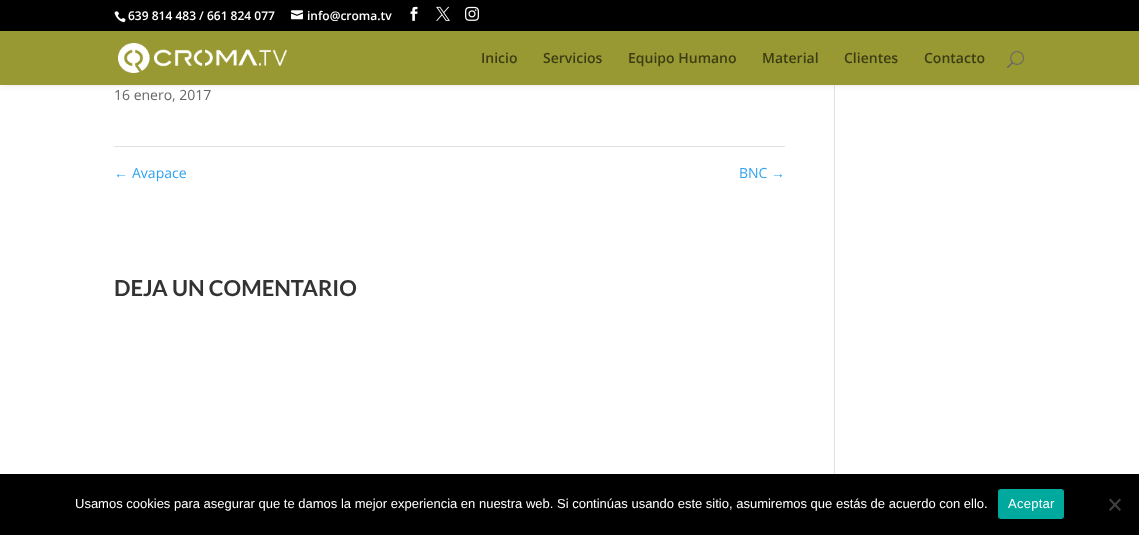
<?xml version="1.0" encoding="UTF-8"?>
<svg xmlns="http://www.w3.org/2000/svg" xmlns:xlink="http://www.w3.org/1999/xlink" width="1139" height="535">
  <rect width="100%" height="100%" fill="#ffffff" />
  <rect x="834" y="85" width="1" height="389" fill="#e2e2e2" />
  <rect y="31" width="1139" height="54" fill="#000000" fill-opacity="0.1" filter="blur(3.5px)" />
  <rect width="1139" height="31" fill="#000000" />
  <image x="114" y="11" width="12" height="12" xlink:href="image1.png" />
  <image x="291" y="10" width="12" height="10" xlink:href="image2.png" />
  <image x="410" y="6" width="8" height="15" xlink:href="image3.png" />
  <image x="436" y="6" width="14" height="15" xlink:href="image4.png" />
  <image x="465" y="6" width="14" height="15" xlink:href="image5.png" />
  <rect y="31" width="1139" height="54" fill="#999933" />
  <image x="118" y="43" width="169" height="30" xlink:href="image6.png" />
  <image x="1007" y="51" width="17" height="17" xlink:href="image7.png" />
  <rect x="114" y="146" width="671" height="1" fill="#e2e2e2" />
  <rect y="474" width="1139" height="61" fill="#000000" />
  <rect x="998" y="489" width="66" height="30" rx="3" fill="#00a99d" />
  <path d="M 1119.5 498.5 l 1.5 1.5 l -10.5 11 l -1.5 -1.5 z" fill="#404040" />
  <path d="M 1109 500 l 1.5 -1.5 l 10.5 11 l -1.5 1.5 z" fill="#404040" />
  <text x="128" y="20" style="font-family: Open Sans; font-size: 12px; font-weight: 600; fill: #ffffff">639 814 483 / 661 824 077</text>
  <text x="307" y="20" style="font-family: Open Sans; font-size: 12px; font-weight: 600; fill: #ffffff">info@croma.tv</text>
  <text x="481" y="63" style="font-family: Open Sans; font-size: 14px; font-weight: 600; fill: #3d3d14">Inicio</text>
  <text x="543" y="63" style="font-family: Open Sans; font-size: 14px; font-weight: 600; fill: #3d3d14">Servicios</text>
  <text x="628" y="63" style="font-family: Open Sans; font-size: 14px; font-weight: 600; fill: #3d3d14">Equipo Humano</text>
  <text x="762" y="63" style="font-family: Open Sans; font-size: 14px; font-weight: 600; fill: #3d3d14">Material</text>
  <text x="844" y="63" style="font-family: Open Sans; font-size: 14px; font-weight: 600; fill: #3d3d14">Clientes</text>
  <text x="924" y="63" style="font-family: Open Sans; font-size: 14px; font-weight: 600; fill: #3d3d14">Contacto</text>
  <text x="114" y="100" style="font-family: Open Sans; font-size: 14px; fill: #666666">16 enero, 2017</text>
  <text x="114" y="178" style="font-family: Liberation Sans; font-size: 14px; fill: #2ea3f2">←</text>
  <text x="132" y="178" style="font-family: Open Sans; font-size: 14px; fill: #2ea3f2">Avapace</text>
  <text x="739" y="178" style="font-family: Open Sans; font-size: 14px; fill: #2ea3f2">BNC</text>
  <text x="771" y="178" style="font-family: Liberation Sans; font-size: 14px; fill: #2ea3f2">→</text>
  <text x="114" y="296" style="font-family: Lato; font-size: 22px; font-weight: bold; fill: #333333">DEJA UN COMENTARIO</text>
  <text x="75" y="508" style="font-family: Liberation Sans; font-size: 13px; fill: #ffffff">Usamos cookies para asegurar que te damos la mejor experiencia en nuestra web. Si continúas usando este sitio, asumiremos que estás de acuerdo con ello.</text>
  <text x="1008" y="508" style="font-family: Liberation Sans; font-size: 13px; letter-spacing: 0.25px; fill: #ffffff">Aceptar</text>
</svg>
